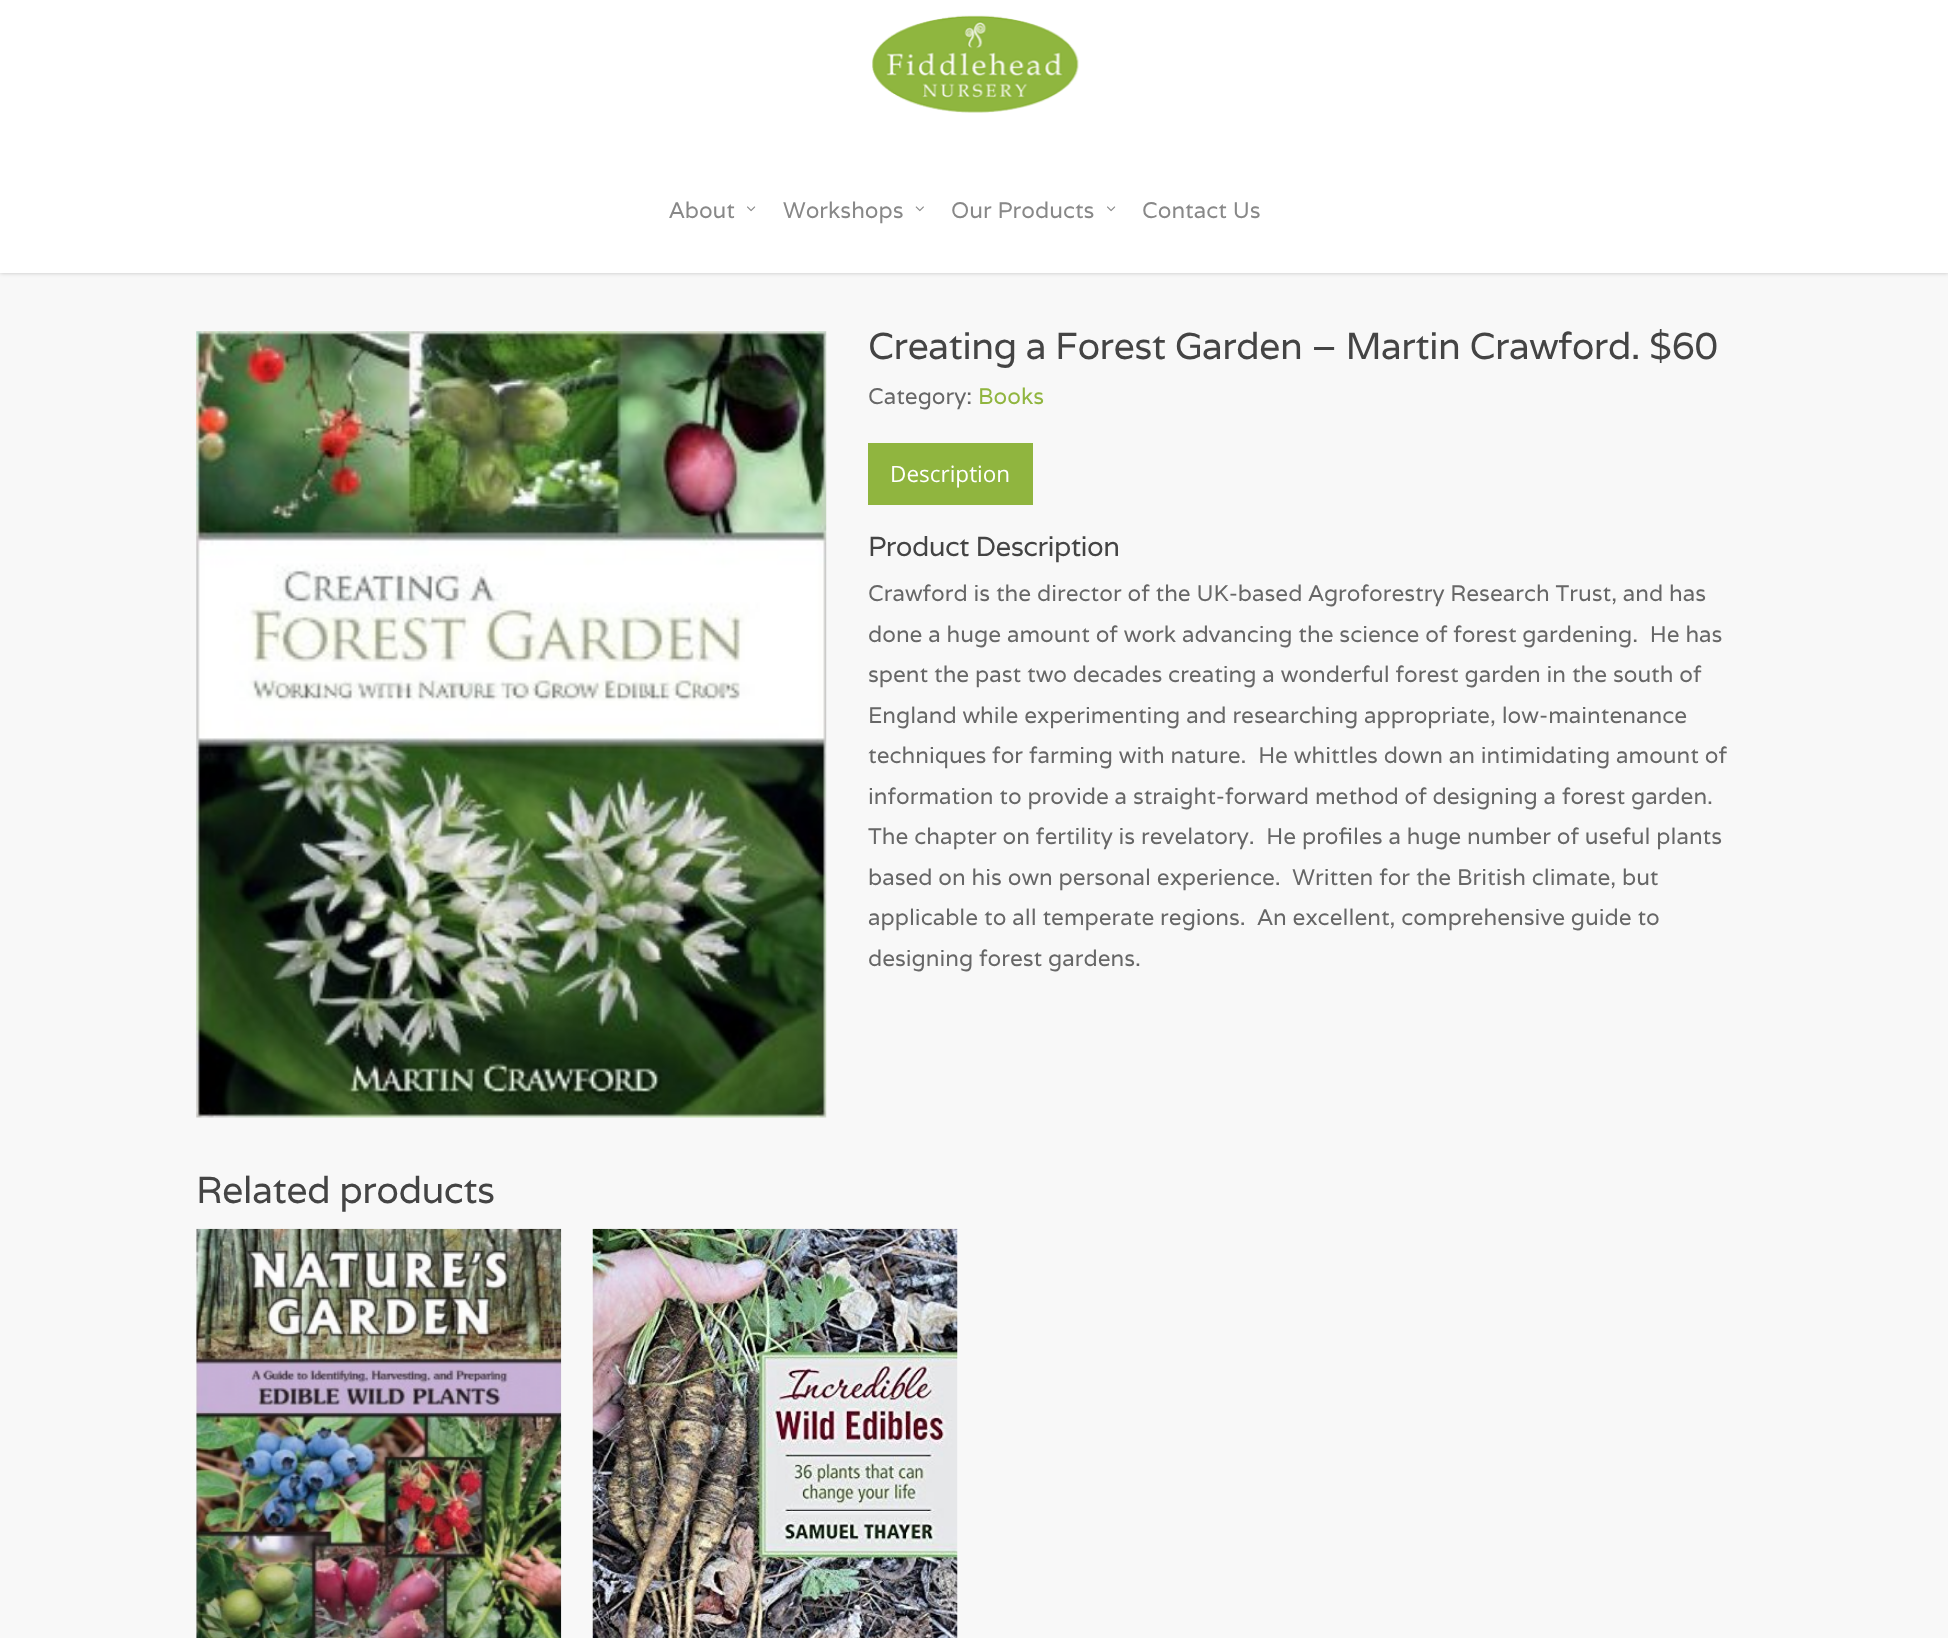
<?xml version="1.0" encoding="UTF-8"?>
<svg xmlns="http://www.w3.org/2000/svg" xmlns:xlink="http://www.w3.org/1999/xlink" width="1948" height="1638">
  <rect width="100%" height="100%" fill="#f8f8f8" />
  <rect width="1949" height="273" fill="#000000" fill-opacity="0.22" filter="blur(2px)" />
  <rect width="1948" height="273" fill="#ffffff" />
  <image x="872" y="15" width="207" height="98" xlink:href="image1.png" />
  <image x="747" y="206" width="9" height="6" xlink:href="image2.png" />
  <image x="915" y="206" width="9" height="6" xlink:href="image3.png" />
  <image x="1107" y="206" width="9" height="6" xlink:href="image2.png" />
  <image x="196" y="331" width="631" height="787" xlink:href="image4.png" />
  <rect x="868" y="443" width="165" height="62" fill="#90b53f" />
  <image x="196" y="1228" width="366" height="410" xlink:href="image5.png" />
  <image x="592" y="1228" width="366" height="410" xlink:href="image6.png" />
  <text x="669" y="218" style="font-family: Varela; font-size: 22.5px; fill: #888888">About</text>
  <text x="783" y="218" style="font-family: Varela; font-size: 22.5px; fill: #888888">Workshops</text>
  <text x="951" y="218" style="font-family: Varela; font-size: 22.5px; fill: #888888">Our Products</text>
  <text x="1142" y="218" style="font-family: Varela; font-size: 22.5px; fill: #888888">Contact Us</text>
  <text x="868" y="359" style="font-family: Varela; font-size: 37.5px; letter-spacing: -0.6px; fill: #444444">Creating a Forest Garden – Martin Crawford. $60</text>
  <text x="868" y="404" style="font-family: Varela; font-size: 22.5px; fill: #676767">Category:</text>
  <text x="978" y="404" style="font-family: Varela; font-size: 22.5px; fill: #90b53f">Books</text>
  <text x="890" y="482" style="font-family: Open Sans; font-size: 22.5px; fill: #ffffff">Description</text>
  <text x="868" y="556" style="font-family: Varela; font-size: 27.5px; letter-spacing: -0.6px; fill: #444444">Product Description</text>
  <text x="868" y="601" style="font-family: Varela; font-size: 22.5px; fill: #676767">Crawford is the director of the UK-based Agroforestry Research Trust, and has</text>
  <text x="868" y="642" style="font-family: Varela; font-size: 22.5px; fill: #676767" xml:space="preserve">done a huge amount of work advancing the science of forest gardening.  He has</text>
  <text x="868" y="682" style="font-family: Varela; font-size: 22.5px; fill: #676767">spent the past two decades creating a wonderful forest garden in the south of</text>
  <text x="868" y="723" style="font-family: Varela; font-size: 22.5px; fill: #676767">England while experimenting and researching appropriate, low-maintenance</text>
  <text x="868" y="763" style="font-family: Varela; font-size: 22.5px; fill: #676767" xml:space="preserve">techniques for farming with nature.  He whittles down an intimidating amount of</text>
  <text x="868" y="804" style="font-family: Varela; font-size: 22.5px; fill: #676767">information to provide a straight-forward method of designing a forest garden.</text>
  <text x="868" y="844" style="font-family: Varela; font-size: 22.5px; fill: #676767" xml:space="preserve">The chapter on fertility is revelatory.  He profiles a huge number of useful plants</text>
  <text x="868" y="885" style="font-family: Varela; font-size: 22.5px; fill: #676767" xml:space="preserve">based on his own personal experience.  Written for the British climate, but</text>
  <text x="868" y="925" style="font-family: Varela; font-size: 22.5px; fill: #676767" xml:space="preserve">applicable to all temperate regions.  An excellent, comprehensive guide to</text>
  <text x="868" y="966" style="font-family: Varela; font-size: 22.5px; fill: #676767">designing forest gardens.</text>
  <text x="196" y="1203" style="font-family: Varela; font-size: 37.5px; letter-spacing: -0.6px; fill: #444444">Related products</text>
</svg>
